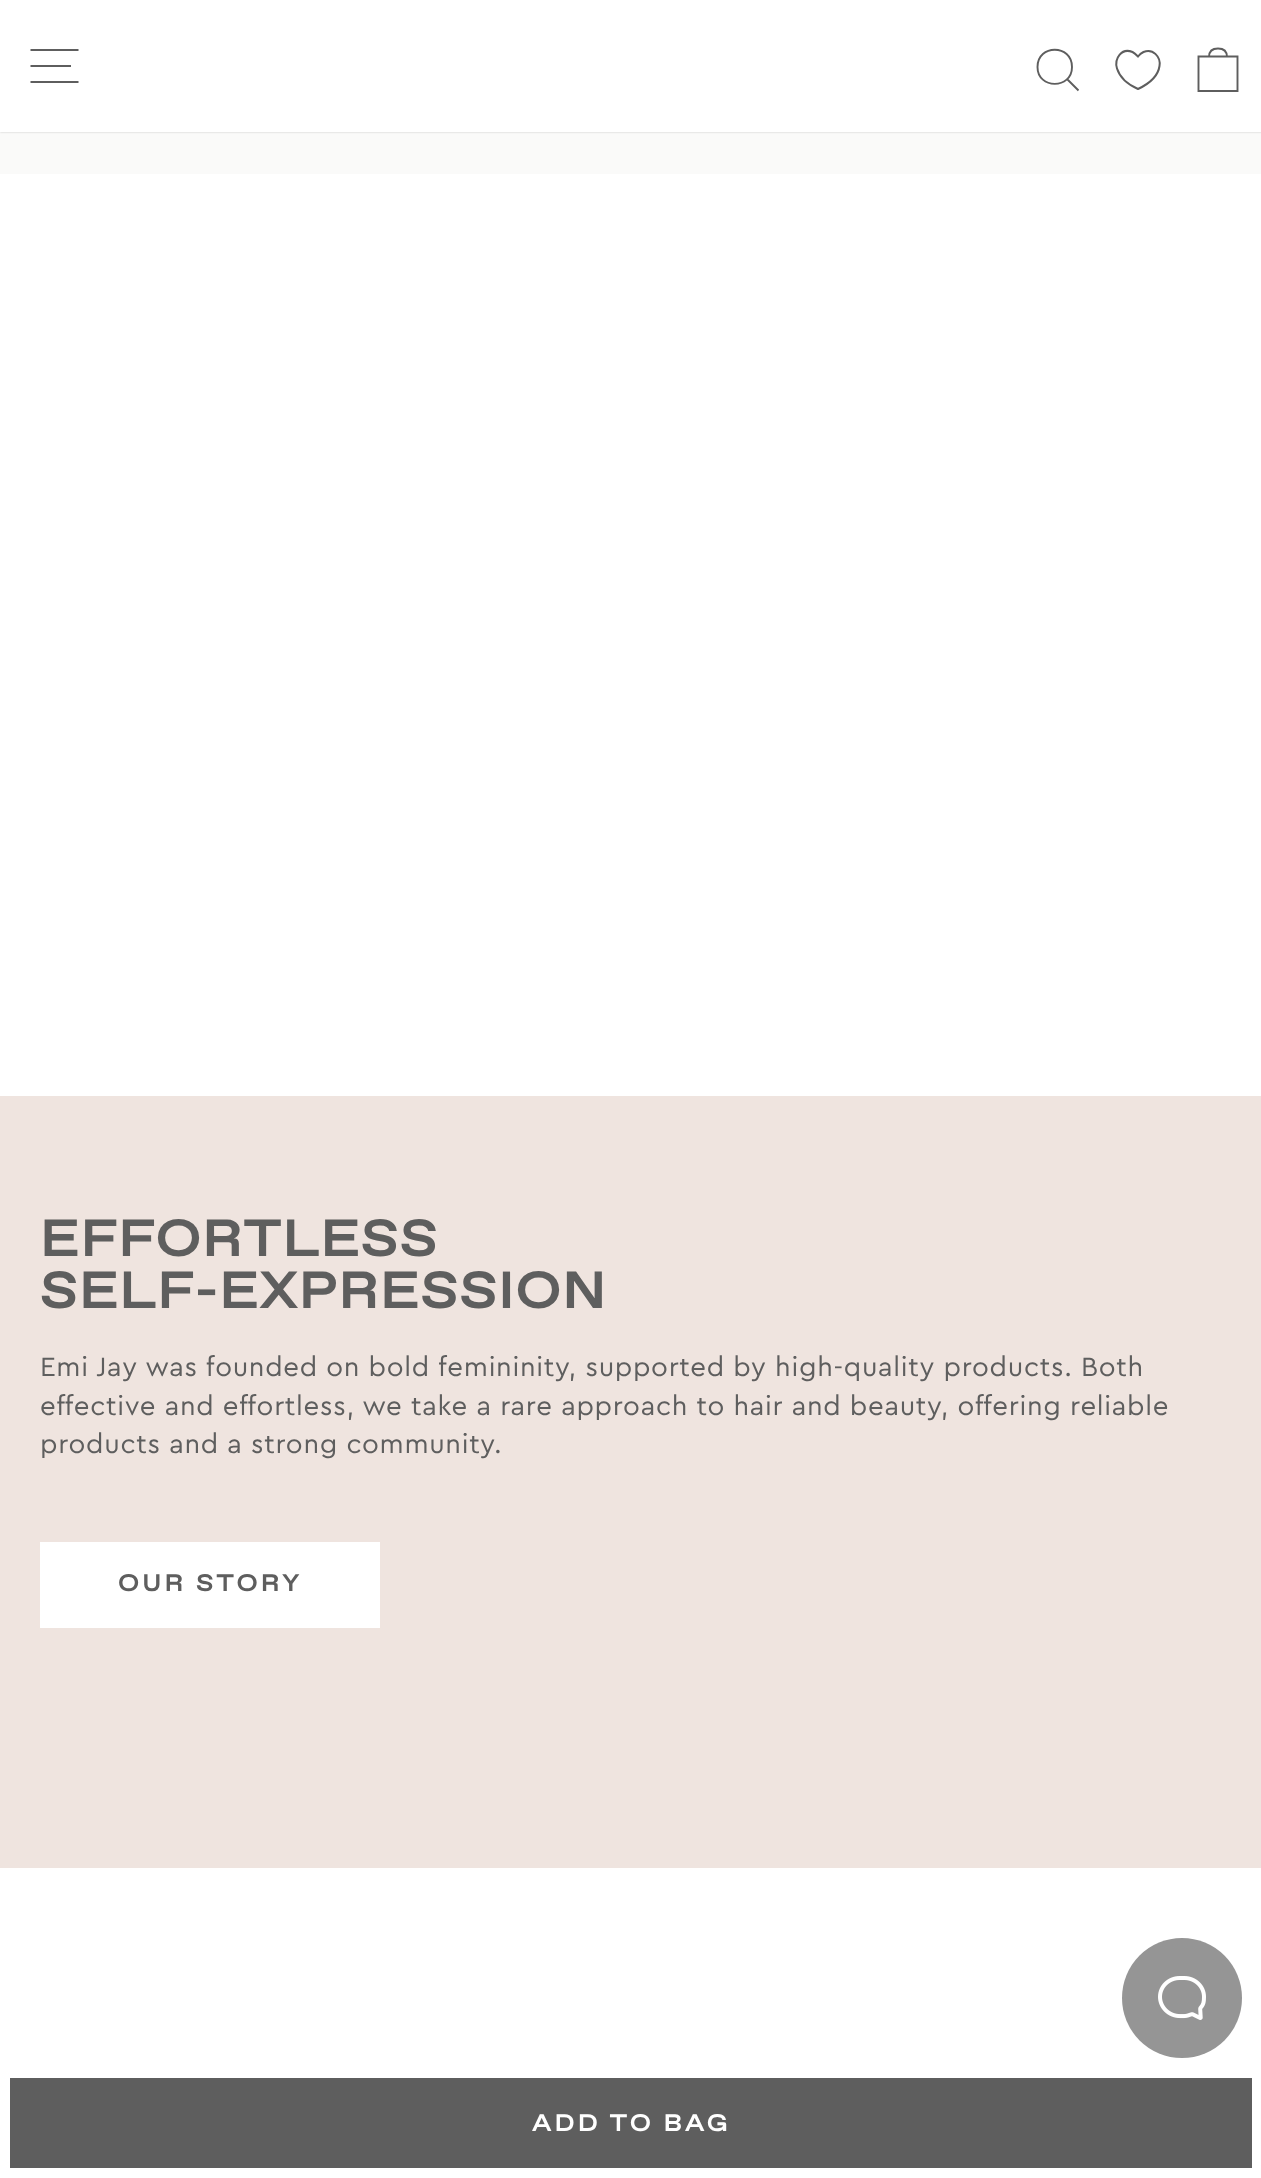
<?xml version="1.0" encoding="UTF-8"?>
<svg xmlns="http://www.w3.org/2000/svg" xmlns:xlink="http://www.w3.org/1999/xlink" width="1261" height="2178">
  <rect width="100%" height="100%" fill="#fafaf9" />
  <rect width="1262" height="132" fill="#000000" fill-opacity="0.2" filter="blur(1px)" />
  <rect width="1261" height="132" fill="#ffffff" />
  <path d="M 30.5 50 h 48 m -48 16 h 40.5 m -40.5 16 h 48" fill="none" stroke="#5e5e5e" stroke-width="1.9" />
  <path d="M 1072 67 c 0 22.5 -34.5 22.5 -34.5 0 c 0 -23 34.5 -23 34.5 0 z m 6.5 23.5 l -11 -11" fill="none" stroke="#5e5e5e" stroke-width="1.9" />
  <path d="M 1138 89 c -9 -4 -18 -11 -21 -20.5 c -3 -10 4.5 -21 15.5 -16.5 c 2 1 3.5 2.5 5.5 4.5 c 1.5 -2 3.5 -3.5 5.5 -4.5 c 9.5 -4 17.5 5 16 14 c -1.5 11 -12 18.5 -21.5 23 z" fill="none" stroke="#5e5e5e" stroke-width="2" />
  <path d="M 1198.5 56.5 h 39 v 34.5 h -39 z m 10.5 0.5 c 0 -7 4 -8.5 9 -8.5 c 5 0 9 1.5 9 8.5" fill="none" stroke="#5e5e5e" stroke-width="1.9" />
  <rect y="1096" width="1261" height="772" fill="#efe4df" />
  <rect y="174" width="1261" height="922" fill="#ffffff" />
  <rect x="40" y="1542" width="340" height="86" fill="#ffffff" />
  <rect y="1868" width="1261" height="200" fill="#ffffff" />
  <rect x="5" y="2073" width="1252" height="100" fill="#5e5e5e" stroke="#ffffff" stroke-width="10" />
  <circle cx="1182" cy="1998" r="60" fill="#959595" />
  <image x="1158" y="1976" width="48" height="44" xlink:href="image1.png" />
  <text x="40" y="1256" style="font-family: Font; font-size: 52px; font-weight: bold; letter-spacing: 0.7px; fill: #5e5e5e">EFFORTLESS</text>
  <text x="40" y="1308" style="font-family: Font; font-size: 52px; font-weight: bold; letter-spacing: 0.7px; fill: #5e5e5e">SELF-EXPRESSION</text>
  <text x="40" y="1376" style="font-family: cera; font-size: 27.6px; letter-spacing: 0.7px; fill: #5e5e5e">Emi Jay was founded on bold femininity, supported by high-quality products. Both</text>
  <text x="40" y="1415" style="font-family: cera; font-size: 27.6px; letter-spacing: 0.7px; fill: #5e5e5e">effective and effortless, we take a rare approach to hair and beauty, offering reliable</text>
  <text x="40" y="1453" style="font-family: cera; font-size: 27.6px; letter-spacing: 0.7px; fill: #5e5e5e">products and a strong community.</text>
  <text x="118" y="1591" style="font-family: Font; font-size: 24px; font-weight: bold; letter-spacing: 3.1px; fill: #5e5e5e">OUR STORY</text>
  <text x="532" y="2131" style="font-family: Font; font-size: 24px; font-weight: bold; letter-spacing: 3.1px; fill: #ffffff">ADD TO BAG</text>
</svg>
